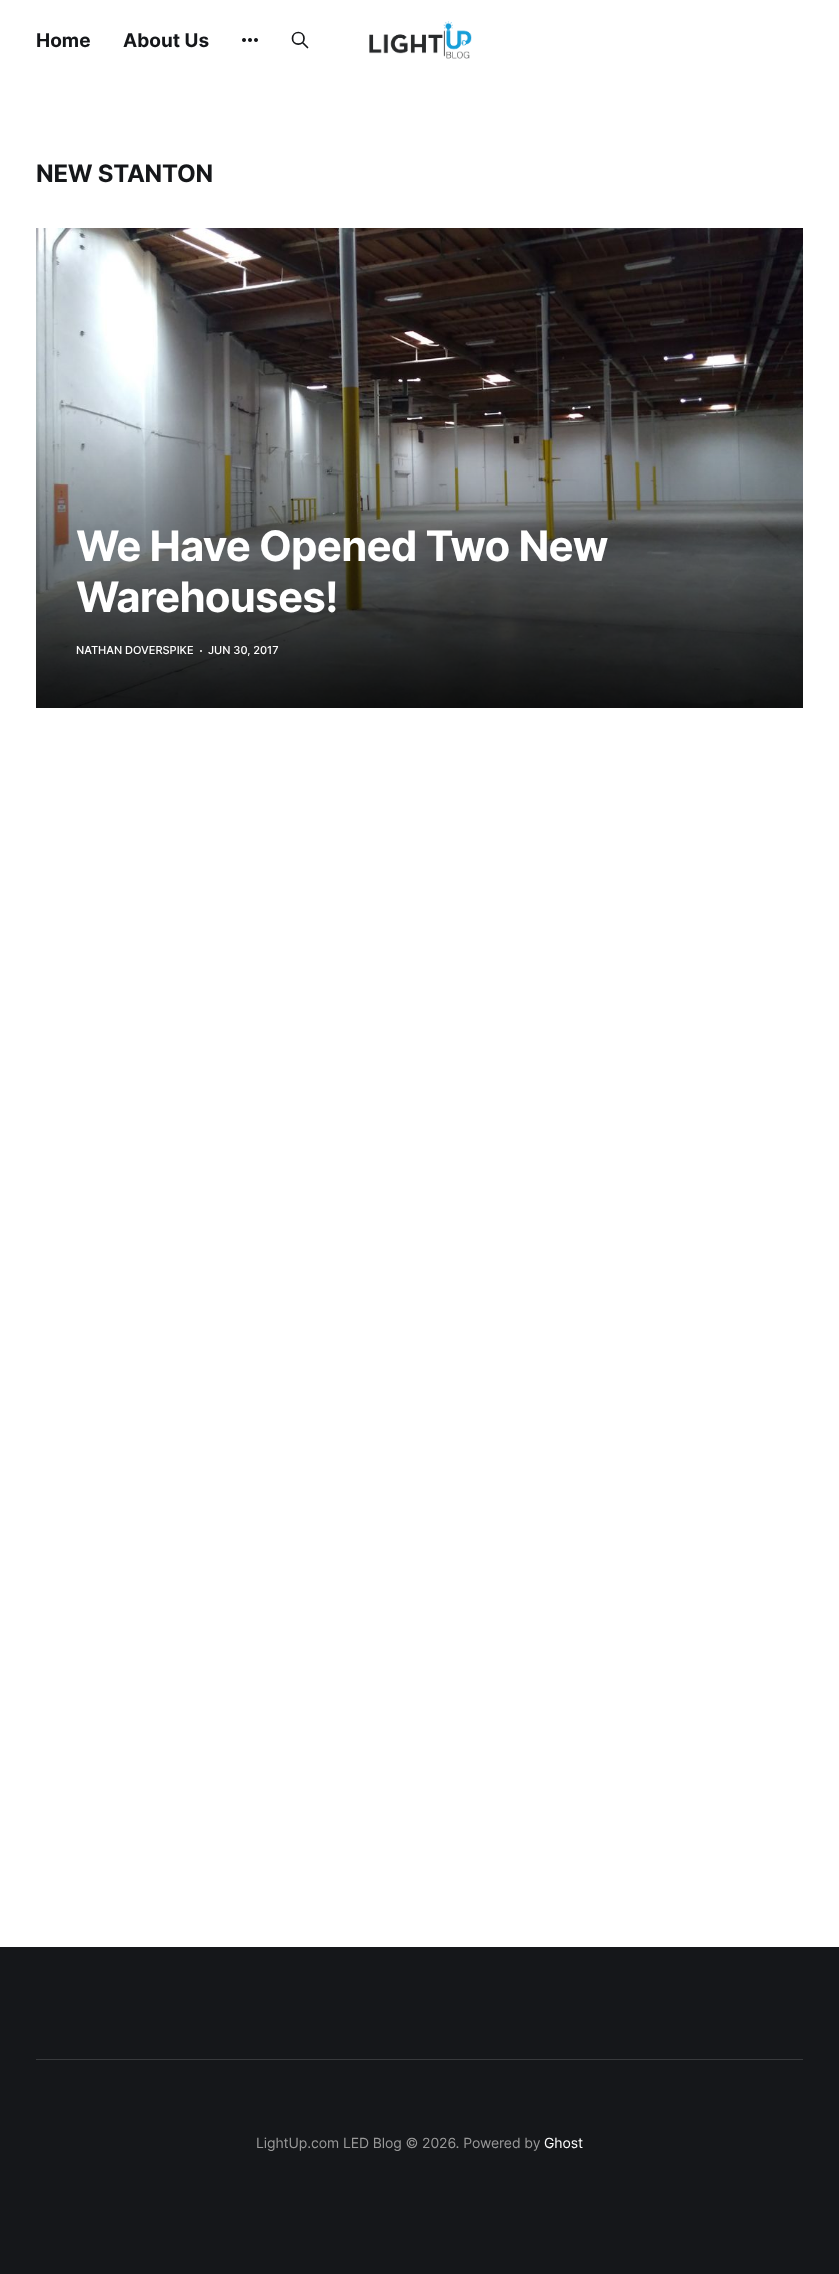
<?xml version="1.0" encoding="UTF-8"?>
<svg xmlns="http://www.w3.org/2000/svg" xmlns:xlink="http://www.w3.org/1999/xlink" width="839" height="2274">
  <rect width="100%" height="100%" fill="#ffffff" />
  <image x="242" y="38" width="16" height="4" xlink:href="image1.png" />
  <path d="M 307.5 47.5 l -5 -5 m 1.5 -4 c 0 7.5 -11.5 7.5 -11.5 0 c 0 -8 11.5 -8 11.5 0 z" fill="none" stroke="#15171a" stroke-width="1.7" stroke-linecap="round" stroke-linejoin="round" />
  <image x="369" y="21" width="103" height="38" xlink:href="image2.png" />
  <image x="36" y="228" width="767" height="480" xlink:href="image3.png" />
  <circle cx="201" cy="651" r="1" fill="#ffffff" />
  <rect y="1947" width="839" height="327" fill="#15171a" />
  <rect x="36" y="2059" width="767" height="1" fill="#383a3c" />
  <text x="36" y="47" style="font-family: Inter; font-size: 19px; font-weight: bold; fill: #15171a">Home</text>
  <text x="123" y="47" style="font-family: Inter; font-size: 19px; font-weight: bold; fill: #15171a">About Us</text>
  <text x="36" y="182" style="font-family: Inter; font-size: 24px; font-weight: bold; letter-spacing: -0.25px; fill: #15171a">NEW STANTON</text>
  <text x="76" y="561" style="font-family: Inter; font-size: 42px; font-weight: bold; letter-spacing: -0.8px; fill: #ffffff">We Have Opened Two New</text>
  <text x="76" y="612" style="font-family: Inter; font-size: 42px; font-weight: bold; letter-spacing: -0.8px; fill: #ffffff">Warehouses!</text>
  <text x="76" y="654" style="font-family: Inter; font-size: 11px; font-weight: 500; fill: #ffffff">NATHAN DOVERSPIKE</text>
  <text x="208" y="654" style="font-family: Inter; font-size: 11px; font-weight: 500; fill: #ffffff">JUN 30, 2017</text>
  <text x="256" y="2148" style="font-family: Inter; font-size: 14px; letter-spacing: -0.1px; fill: #999999">LightUp.com LED Blog © 2026. Powered by</text>
  <text x="544" y="2148" style="font-family: Inter; font-size: 14px; letter-spacing: -0.1px; fill: #ffffff">Ghost</text>
</svg>
